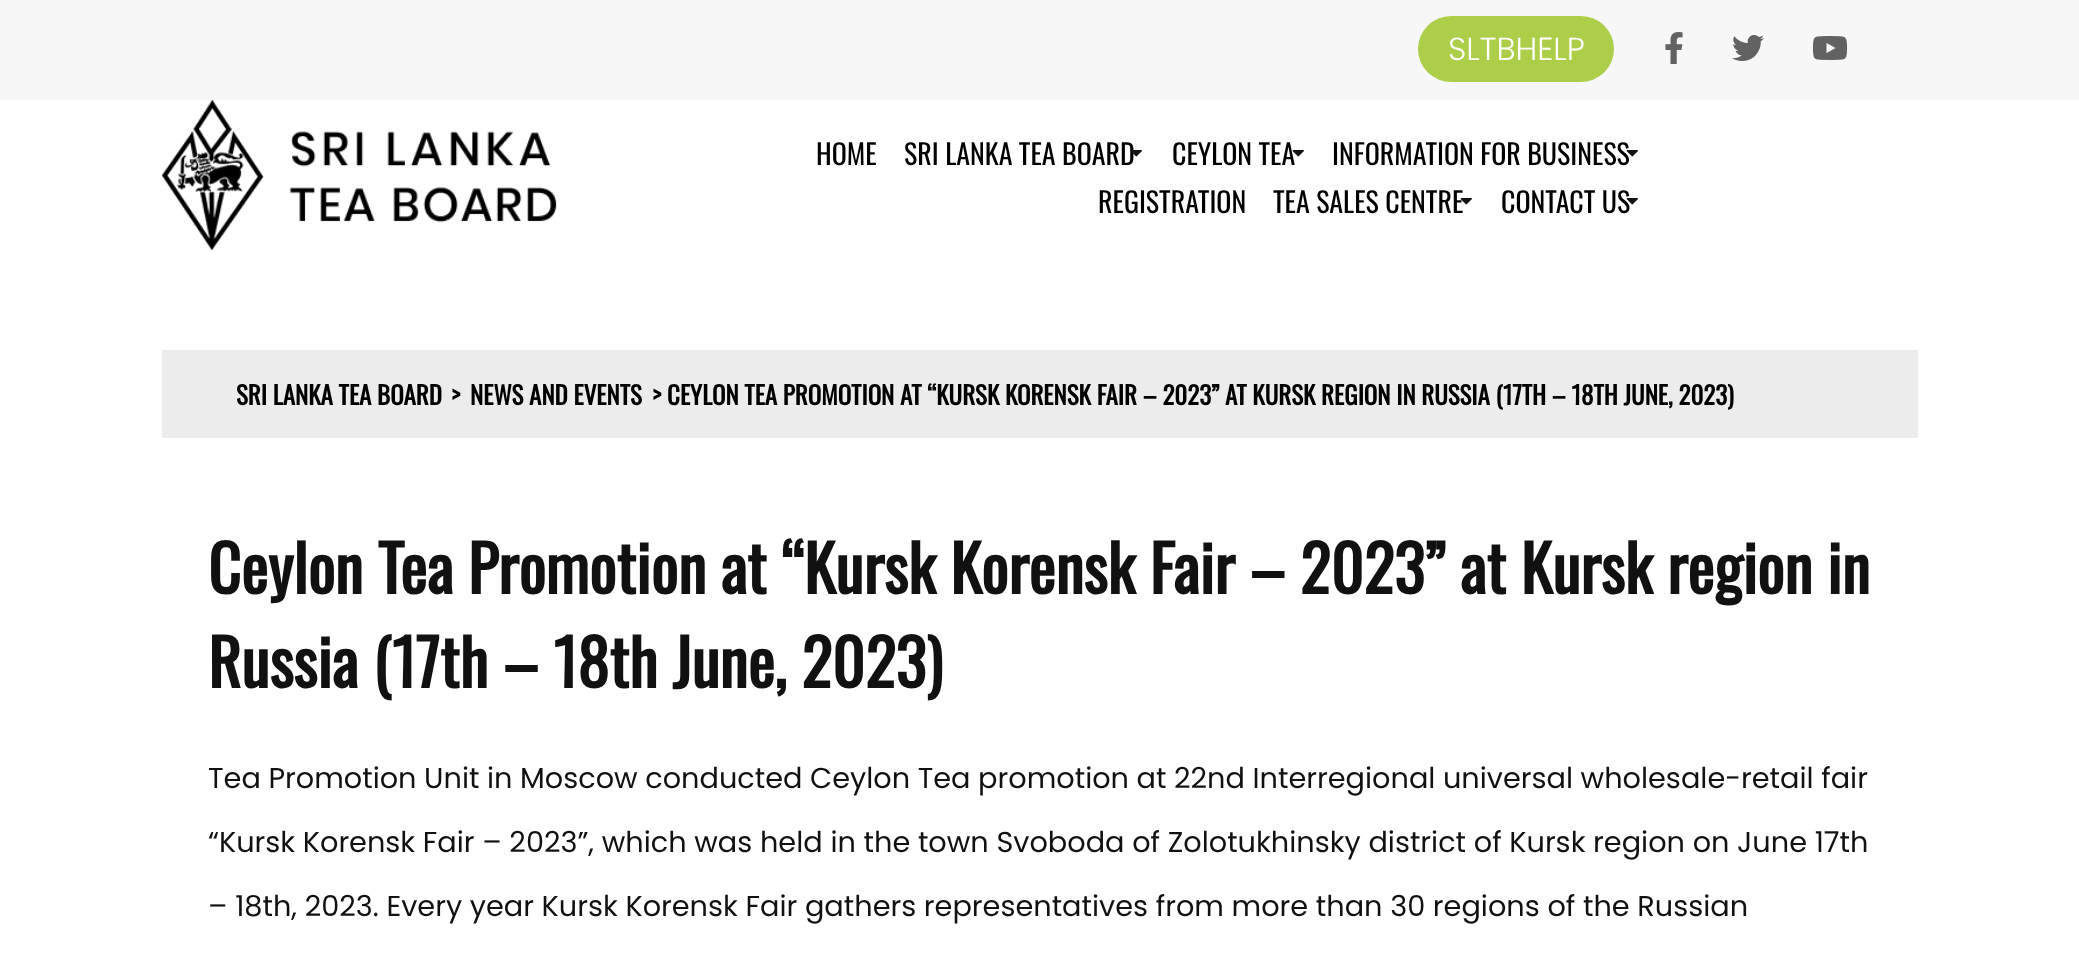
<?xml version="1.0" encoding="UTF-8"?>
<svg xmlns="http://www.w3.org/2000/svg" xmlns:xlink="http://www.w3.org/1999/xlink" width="2079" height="970">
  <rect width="100%" height="100%" fill="#ffffff" />
  <rect width="2079" height="100" fill="#f7f7f7" />
  <rect x="1418" y="16" width="196" height="66" rx="33" fill="#adce49" />
  <image x="1665" y="32" width="18" height="32" xlink:href="image1.png" />
  <image x="1732" y="35" width="32" height="26" xlink:href="image2.png" />
  <image x="1812" y="36" width="36" height="24" xlink:href="image3.png" />
  <image x="162" y="100" width="395" height="150" xlink:href="image4.png" />
  <rect x="162" y="350" width="1756" height="88" fill="#ececec" />
  <text x="1448" y="60" style="font-family: Poppins; font-size: 32px; font-weight: 300; fill: #ffffff">SLTBHELP</text>
  <text x="816" y="165" style="font-family: Oswald; font-size: 28px; fill: #000000">HOME</text>
  <text x="904" y="165" style="font-family: Oswald; font-size: 28px; fill: #000000">SRI LANKA TEA BOARD</text>
  <image x="1130" y="150" width="12" height="7" xlink:href="image5.png" />
  <text x="1172" y="165" style="font-family: Oswald; font-size: 28px; fill: #000000">CEYLON TEA</text>
  <image x="1292" y="150" width="12" height="7" xlink:href="image6.png" />
  <text x="1332" y="165" style="font-family: Oswald; font-size: 28px; fill: #000000">INFORMATION FOR BUSINESS</text>
  <image x="1626" y="150" width="12" height="7" xlink:href="image7.png" />
  <text x="1098" y="213" style="font-family: Oswald; font-size: 28px; fill: #000000">REGISTRATION</text>
  <text x="1273" y="213" style="font-family: Oswald; font-size: 28px; fill: #000000">TEA SALES CENTRE</text>
  <image x="1460" y="198" width="12" height="7" xlink:href="image8.png" />
  <text x="1501" y="213" style="font-family: Oswald; font-size: 28px; fill: #000000">CONTACT US</text>
  <image x="1626" y="198" width="12" height="7" xlink:href="image7.png" />
  <text x="236" y="405" style="font-family: Oswald; font-size: 25px; font-weight: bold; fill: #000000">SRI LANKA TEA BOARD</text>
  <text x="451" y="405" style="font-family: Oswald; font-size: 25px; font-weight: bold; fill: #000000">&gt;</text>
  <text x="470" y="405" style="font-family: Oswald; font-size: 25px; font-weight: bold; fill: #000000">NEWS AND EVENTS</text>
  <text x="652" y="405" style="font-family: Oswald; font-size: 25px; font-weight: bold; fill: #000000">&gt; CEYLON TEA PROMOTION AT “KURSK KORENSK FAIR – 2023” AT KURSK REGION IN RUSSIA (17TH – 18TH JUNE, 2023)</text>
  <text x="208" y="594" style="font-family: Oswald; font-size: 64px; font-weight: bold; fill: #111111">Ceylon Tea Promotion at “Kursk Korensk Fair – 2023” at Kursk region in</text>
  <text x="208" y="688" style="font-family: Oswald; font-size: 64px; font-weight: bold; fill: #111111">Russia (17th – 18th June, 2023)</text>
  <text x="208" y="788" word-spacing="-0.1" style="font-family: Poppins; font-size: 28.75px; fill: #111111">Tea Promotion Unit in Moscow conducted Ceylon Tea promotion at 22nd Interregional universal wholesale-retail fair</text>
  <text x="208" y="852" style="font-family: Poppins; font-size: 28.75px; fill: #111111">“Kursk Korensk Fair – 2023”, which was held in the town Svoboda of Zolotukhinsky district of Kursk region on June 17th</text>
  <text x="208" y="916" style="font-family: Poppins; font-size: 28.75px; fill: #111111">– 18th, 2023. Every year Kursk Korensk Fair gathers representatives from more than 30 regions of the Russian</text>
</svg>
